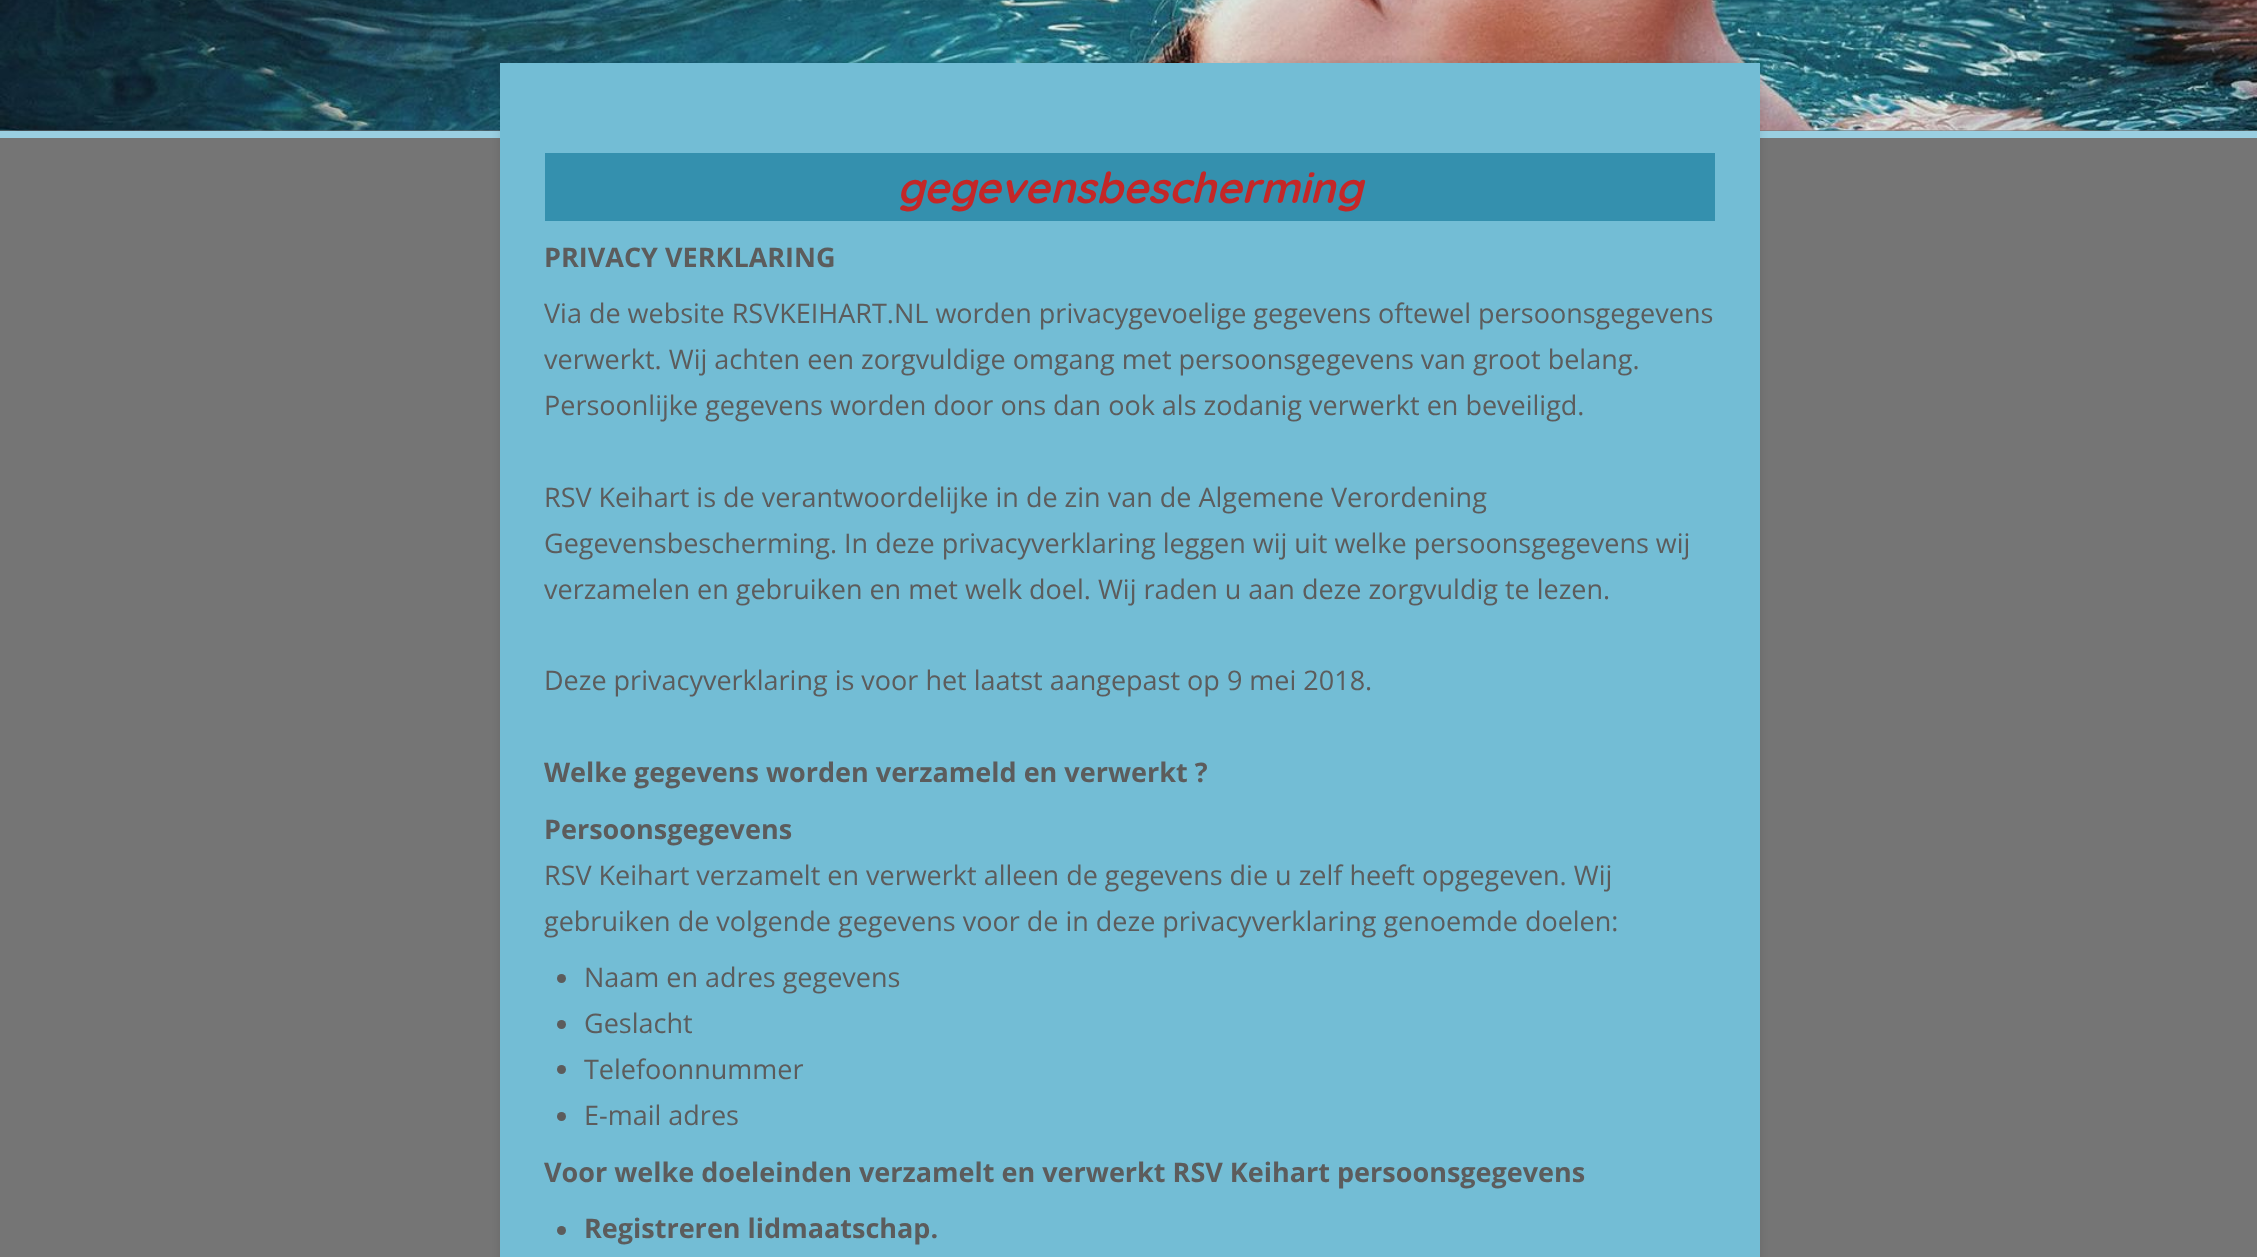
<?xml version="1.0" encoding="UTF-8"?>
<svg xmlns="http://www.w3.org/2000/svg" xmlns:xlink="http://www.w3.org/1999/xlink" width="2257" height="1257">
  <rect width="100%" height="100%" fill="#757575" />
  <rect y="131" width="2257" height="7" fill="#9acfe1" />
  <image x="0" y="0" width="2257" height="131" xlink:href="image1.png" />
  <rect x="500" y="63" width="1260" height="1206" fill="#000000" fill-opacity="0.1" filter="blur(4px)" />
  <rect x="500" y="63" width="1260" height="1194" fill="#73bdd5" />
  <rect x="545" y="153" width="1170" height="68" fill="#3490ae" />
  <circle cx="561.5" cy="978.5" r="4.5" fill="#5c5c5c" />
  <circle cx="561.5" cy="1024.5" r="4.5" fill="#5c5c5c" />
  <circle cx="561.5" cy="1069.5" r="4.5" fill="#5c5c5c" />
  <circle cx="561.5" cy="1116.5" r="4.5" fill="#5c5c5c" />
  <circle cx="561.5" cy="1230.5" r="4.5" fill="#5c5c5c" />
  <text x="897" y="203" style="font-family: Quicksand; font-size: 42.9px; font-weight: bold; font-style: italic; fill: #c42727">gegevensbescherming</text>
  <text x="544" y="267" style="font-family: Open Sans; font-size: 27px; font-weight: bold; fill: #5c5c5c">PRIVACY VERKLARING</text>
  <text x="544" y="323" style="font-family: Open Sans; font-size: 27px; fill: #5c5c5c">Via de website RSVKEIHART.NL worden privacygevoelige gegevens oftewel persoonsgegevens</text>
  <text x="544" y="369" style="font-family: Open Sans; font-size: 27px; fill: #5c5c5c">verwerkt. Wij achten een zorgvuldige omgang met persoonsgegevens van groot belang.</text>
  <text x="544" y="415" style="font-family: Open Sans; font-size: 27px; fill: #5c5c5c">Persoonlijke gegevens worden door ons dan ook als zodanig verwerkt en beveiligd.</text>
  <text x="544" y="507" style="font-family: Open Sans; font-size: 27px; fill: #5c5c5c">RSV Keihart is de verantwoordelijke in de zin van de Algemene Verordening</text>
  <text x="544" y="553" style="font-family: Open Sans; font-size: 27px; fill: #5c5c5c">Gegevensbescherming. In deze privacyverklaring leggen wij uit welke persoonsgegevens wij</text>
  <text x="544" y="599" style="font-family: Open Sans; font-size: 27px; fill: #5c5c5c">verzamelen en gebruiken en met welk doel. Wij raden u aan deze zorgvuldig te lezen.</text>
  <text x="544" y="690" style="font-family: Open Sans; font-size: 27px; fill: #5c5c5c">Deze privacyverklaring is voor het laatst aangepast op 9 mei 2018.</text>
  <text x="544" y="782" style="font-family: Open Sans; font-size: 27px; font-weight: bold; fill: #5c5c5c">Welke gegevens worden verzameld en verwerkt ?</text>
  <text x="544" y="839" style="font-family: Open Sans; font-size: 27px; font-weight: bold; fill: #5c5c5c">Persoonsgegevens</text>
  <text x="544" y="885" style="font-family: Open Sans; font-size: 27px; fill: #5c5c5c">RSV Keihart verzamelt en verwerkt alleen de gegevens die u zelf heeft opgegeven. Wij</text>
  <text x="544" y="931" style="font-family: Open Sans; font-size: 27px; fill: #5c5c5c">gebruiken de volgende gegevens voor de in deze privacyverklaring genoemde doelen:</text>
  <text x="584" y="987" style="font-family: Open Sans; font-size: 27px; fill: #5c5c5c">Naam en adres gegevens</text>
  <text x="584" y="1033" style="font-family: Open Sans; font-size: 27px; fill: #5c5c5c">Geslacht</text>
  <text x="584" y="1079" style="font-family: Open Sans; font-size: 27px; fill: #5c5c5c">Telefoonnummer</text>
  <text x="584" y="1125" style="font-family: Open Sans; font-size: 27px; fill: #5c5c5c">E-mail adres</text>
  <text x="544" y="1182" style="font-family: Open Sans; font-size: 27px; font-weight: bold; fill: #5c5c5c">Voor welke doeleinden verzamelt en verwerkt RSV Keihart persoonsgegevens</text>
  <text x="584" y="1238" style="font-family: Open Sans; font-size: 27px; font-weight: bold; fill: #5c5c5c">Registreren lidmaatschap.</text>
</svg>
